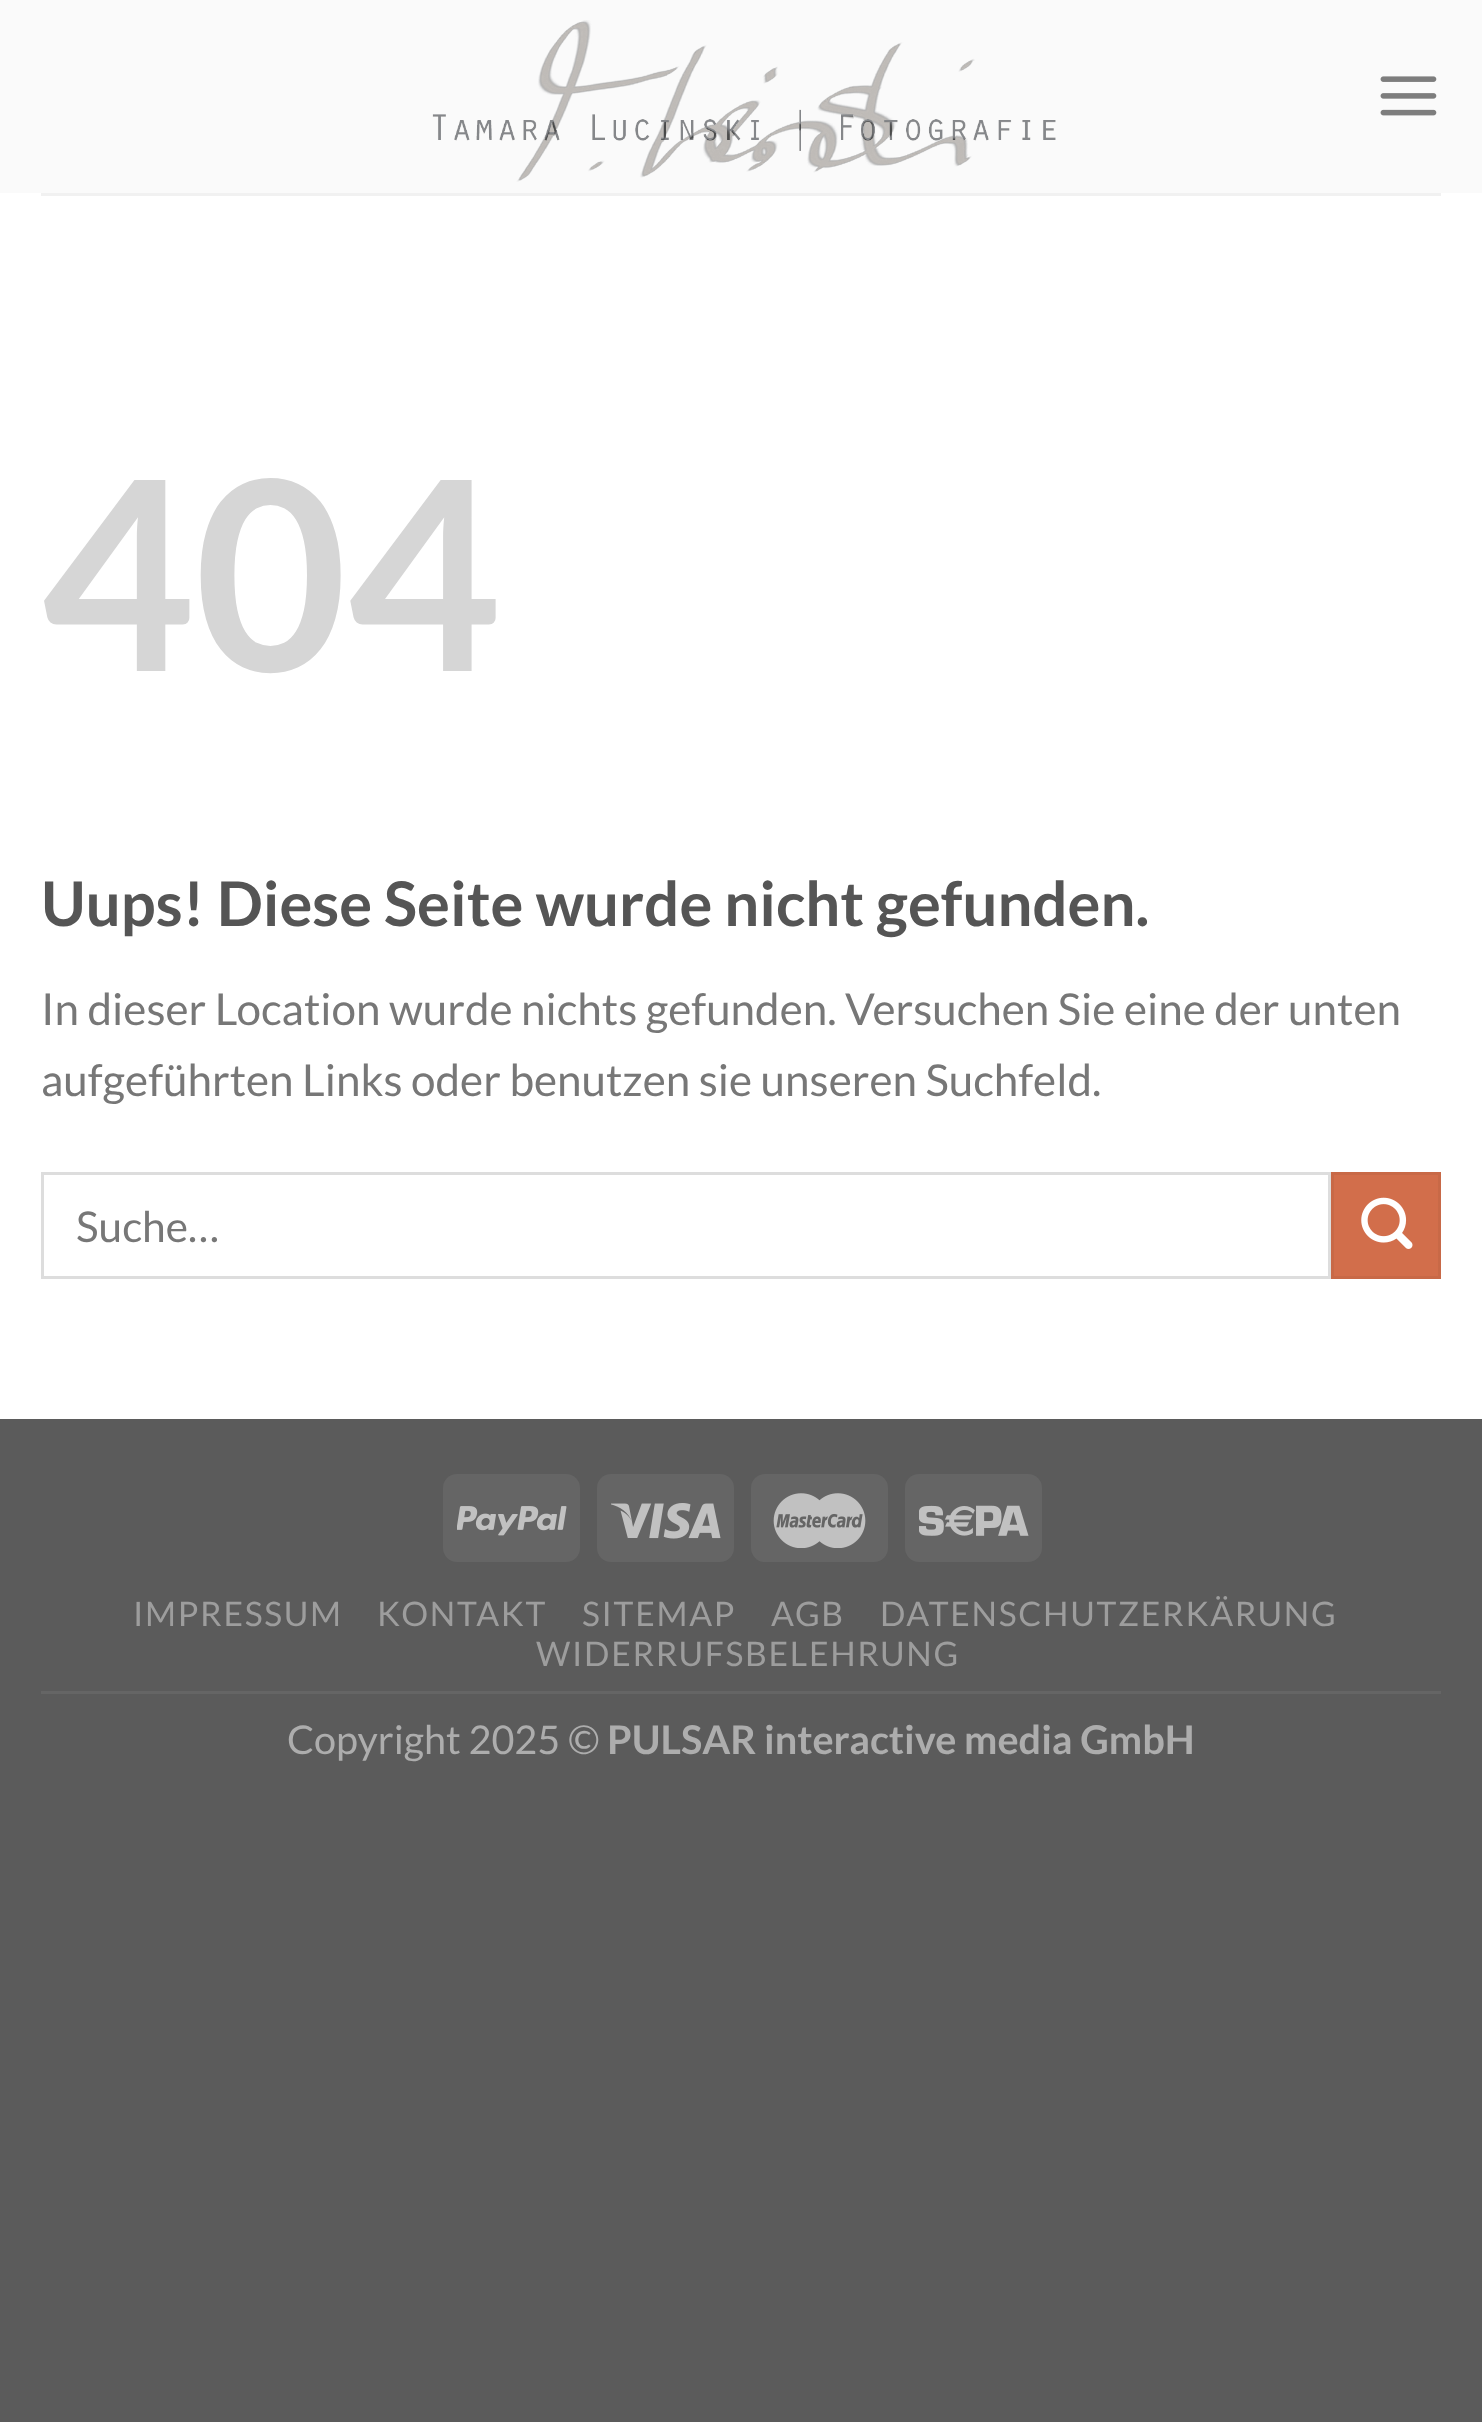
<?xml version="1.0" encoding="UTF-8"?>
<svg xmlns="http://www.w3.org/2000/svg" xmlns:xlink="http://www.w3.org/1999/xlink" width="1482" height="2422">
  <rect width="100%" height="100%" fill="#5b5b5b" />
  <rect y="193" width="1482" height="1226" fill="#ffffff" />
  <rect width="1482" height="193" fill="#fafafa" />
  <image x="432" y="20" width="624" height="162" xlink:href="image1.png" />
  <image x="1380" y="76" width="57" height="40" xlink:href="image2.png" />
  <rect x="41" y="193" width="1400" height="3" fill="#f1f1f1" />
  <rect x="42.5" y="1173.5" width="1287" height="104" fill="none" stroke="#dddddd" stroke-width="3" />
  <rect x="1332.5" y="1173.5" width="107" height="104" fill="#d26e4b" stroke="#c86947" stroke-width="3" />
  <image x="1361" y="1197" width="52" height="52" xlink:href="image3.png" />
  <rect x="443" y="1474" width="137" height="88" rx="14" fill="#656565" />
  <image x="457" y="1506" width="110" height="30" xlink:href="image4.png" />
  <rect x="597" y="1474" width="137" height="88" rx="14" fill="#656565" />
  <image x="611" y="1503" width="110" height="36" xlink:href="image5.png" />
  <rect x="751" y="1474" width="137" height="88" rx="14" fill="#656565" />
  <image x="773" y="1493" width="93" height="55" xlink:href="image6.png" />
  <rect x="905" y="1474" width="137" height="88" rx="14" fill="#656565" />
  <image x="919" y="1505" width="110" height="31" xlink:href="image7.png" />
  <rect x="41" y="1691" width="1400" height="3" fill="#656565" />
  <text x="41" y="671" style="font-family: Lato; font-size: 264px; font-weight: bold; fill: #d6d6d6">404</text>
  <text x="41" y="926" style="font-family: Lato; font-size: 61.6px; font-weight: bold; fill: #555555">Uups! Diese Seite wurde nicht gefunden.</text>
  <text x="41" y="1025" style="font-family: Lato; font-size: 44px; fill: #777777">In dieser Location wurde nichts gefunden. Versuchen Sie eine der unten</text>
  <text x="41" y="1096" style="font-family: Lato; font-size: 44px; fill: #777777">aufgeführten Links oder benutzen sie unseren Suchfeld.</text>
  <text x="76" y="1242" style="font-family: Lato; font-size: 42.5px; fill: #777777">Suche…</text>
  <text x="133" y="1626" style="font-family: Lato; font-size: 33.7px; letter-spacing: 1.7px; fill: #9d9d9d">IMPRESSUM</text>
  <text x="377" y="1626" style="font-family: Lato; font-size: 33.7px; letter-spacing: 1.7px; fill: #9d9d9d">KONTAKT</text>
  <text x="582" y="1626" style="font-family: Lato; font-size: 33.7px; letter-spacing: 1.7px; fill: #9d9d9d">SITEMAP</text>
  <text x="771" y="1626" style="font-family: Lato; font-size: 33.7px; letter-spacing: 1.7px; fill: #9d9d9d">AGB</text>
  <text x="880" y="1626" style="font-family: Lato; font-size: 33.7px; letter-spacing: 1.7px; fill: #9d9d9d">DATENSCHUTZERKÄRUNG</text>
  <text x="536" y="1666" style="font-family: Lato; font-size: 33.7px; letter-spacing: 1.7px; fill: #9d9d9d">WIDERRUFSBELEHRUNG</text>
  <text x="287" y="1754" style="font-family: Lato; font-size: 39.6px; fill: #adadad">Copyright 2025 ©</text>
  <text x="607" y="1754" style="font-family: Lato; font-size: 39.6px; font-weight: bold; fill: #adadad">PULSAR interactive media GmbH</text>
</svg>
